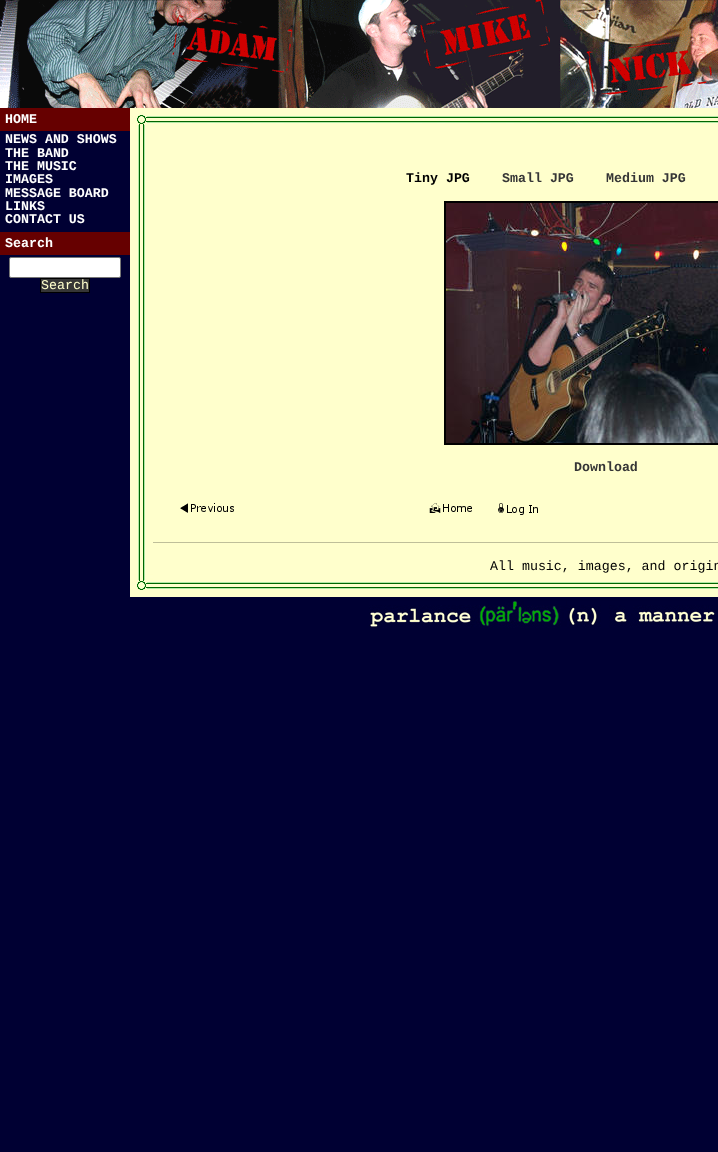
<?xml version="1.0" encoding="UTF-8"?>
<svg xmlns="http://www.w3.org/2000/svg" xmlns:xlink="http://www.w3.org/1999/xlink" width="718" height="1152">
  <rect width="100%" height="100%" fill="#000033" />
  <image x="0" y="0" width="718" height="108" xlink:href="image1.png" />
  <rect y="108" width="130" height="5" fill="#660000" />
  <rect y="113" width="130" height="13" fill="#660000" />
  <rect y="126" width="130" height="5" fill="#660000" />
  <rect y="232" width="130" height="5" fill="#660000" />
  <rect y="237" width="130" height="13" fill="#660000" />
  <rect y="250" width="130" height="5" fill="#660000" />
  <rect x="9.5" y="257.5" width="111" height="20" rx="1.5" fill="#ffffff" stroke="#767676" />
  <rect x="40.5" y="278.5" width="49" height="14" fill="#363636" stroke="#000000" />
  <rect x="130" y="108" width="588" height="23" fill="#ffffcc" />
  <image x="132" y="112" width="21" height="19" xlink:href="image2.png" />
  <image x="153" y="116" width="565" height="8" xlink:href="image3.png" />
  <rect x="130" y="131" width="588" height="443" fill="#ffffcc" />
  <image x="138" y="131" width="8" height="443" xlink:href="image4.png" />
  <rect x="444" y="201" width="274" height="244" fill="#000000" />
  <image x="446" y="203" width="272" height="240" xlink:href="image5.png" />
  <image x="180" y="503" width="54" height="10" xlink:href="image6.png" />
  <image x="429" y="503" width="43" height="10" xlink:href="image7.png" />
  <image x="498" y="503" width="40" height="12" xlink:href="image8.png" />
  <rect x="153" y="542" width="565" height="1" fill="#bfbf99" />
  <rect x="130" y="574" width="588" height="23" fill="#ffffcc" />
  <image x="132" y="574" width="21" height="16" xlink:href="image9.png" />
  <image x="153" y="582" width="565" height="8" xlink:href="image3.png" />
  <image x="369" y="601" width="347" height="27" xlink:href="image10.png" />
  <text x="5" y="123" style="font-family: Liberation Mono; font-size: 13.3px; font-weight: bold; fill: #ffffff">HOME</text>
  <text x="5" y="143" style="font-family: Liberation Mono; font-size: 13.3px; font-weight: bold; fill: #ffffff">NEWS AND SHOWS</text>
  <text x="5" y="157" style="font-family: Liberation Mono; font-size: 13.3px; font-weight: bold; fill: #ffffff">THE BAND</text>
  <text x="5" y="170" style="font-family: Liberation Mono; font-size: 13.3px; font-weight: bold; fill: #ffffff">THE MUSIC</text>
  <text x="5" y="183" style="font-family: Liberation Mono; font-size: 13.3px; font-weight: bold; fill: #ffffff">IMAGES</text>
  <text x="5" y="197" style="font-family: Liberation Mono; font-size: 13.3px; font-weight: bold; fill: #ffffff">MESSAGE BOARD</text>
  <text x="5" y="210" style="font-family: Liberation Mono; font-size: 13.3px; font-weight: bold; fill: #ffffff">LINKS</text>
  <text x="5" y="223" style="font-family: Liberation Mono; font-size: 13.3px; font-weight: bold; fill: #ffffff">CONTACT US</text>
  <text x="5" y="247" style="font-family: Liberation Mono; font-size: 13.3px; font-weight: bold; fill: #ffffff">Search</text>
  <text x="41" y="289" style="font-family: Liberation Mono; font-size: 13.3px; fill: #ffffcc">Search</text>
  <text x="406" y="182" style="font-family: Liberation Mono; font-size: 13.3px; font-weight: bold; fill: #000000">Tiny JPG</text>
  <text x="502" y="182" style="font-family: Liberation Mono; font-size: 13.3px; font-weight: bold; fill: #363636">Small JPG</text>
  <text x="606" y="182" style="font-family: Liberation Mono; font-size: 13.3px; font-weight: bold; fill: #363636">Medium JPG</text>
  <text x="574" y="471" style="font-family: Liberation Mono; font-size: 13.3px; font-weight: bold; fill: #363636">Download</text>
  <text x="490" y="570" style="font-family: Liberation Mono; font-size: 13.3px; fill: #000000">All music, images, and origin</text>
</svg>
